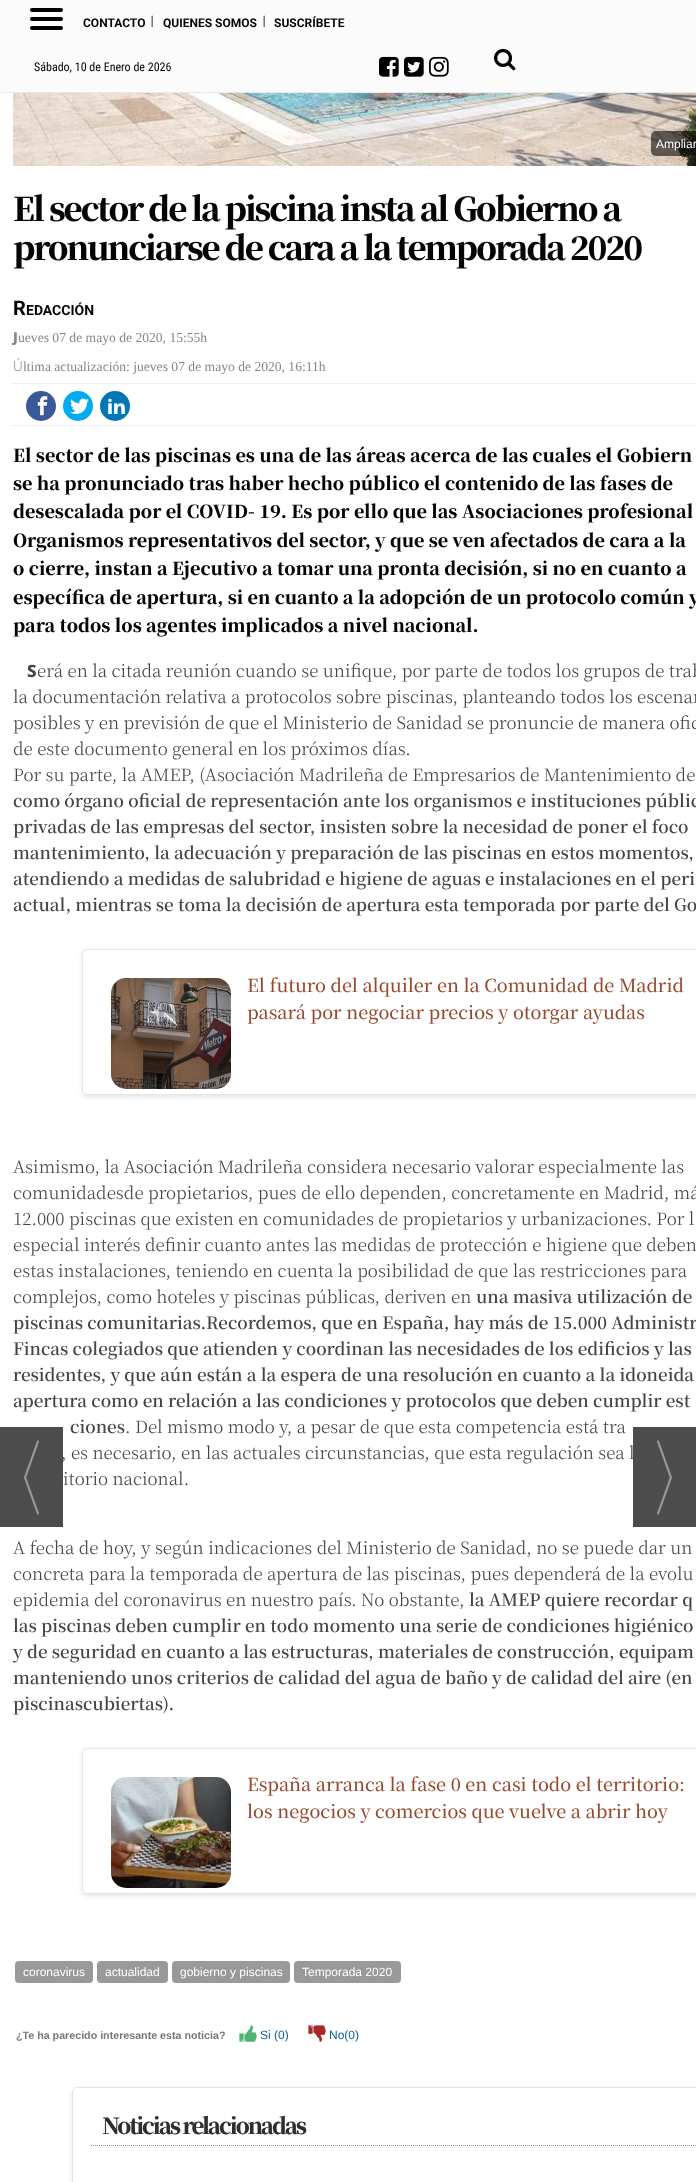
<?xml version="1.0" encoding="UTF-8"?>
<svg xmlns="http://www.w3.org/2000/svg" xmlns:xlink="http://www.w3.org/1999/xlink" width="696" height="2182">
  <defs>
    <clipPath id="clip1"><path d="M 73 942 h 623 v 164 h -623 z m 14 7 h 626 c 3 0 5 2 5 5 v 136 c 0 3 -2 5 -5 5 h -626 c -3 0 -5 -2 -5 -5 v -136 c 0 -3 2 -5 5 -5 z" clip-rule="evenodd" /></clipPath>
    <clipPath id="clip2"><path d="M 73 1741 h 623 v 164 h -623 z m 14 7 h 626 c 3 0 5 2 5 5 v 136 c 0 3 -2 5 -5 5 h -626 c -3 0 -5 -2 -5 -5 v -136 c 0 -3 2 -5 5 -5 z" clip-rule="evenodd" /></clipPath>
    <clipPath id="clip3"><path d="M 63 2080 h 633 v 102 h -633 z m 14 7 h 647 c 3 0 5 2 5 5 v 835 c 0 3 -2 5 -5 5 h -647 c -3 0 -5 -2 -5 -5 v -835 c 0 -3 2 -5 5 -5 z" clip-rule="evenodd" /></clipPath>
  </defs>
  <rect width="100%" height="100%" fill="#ffffff" />
  <rect width="696" height="92" fill="#fbfbfb" />
  <rect y="92" width="696" height="1" fill="#e8e8e8" />
  <rect x="30" y="8" width="33" height="4" rx="2" fill="#000000" />
  <rect x="30" y="17" width="33" height="4" rx="2" fill="#000000" />
  <rect x="30" y="26" width="33" height="4" rx="2" fill="#000000" />
  <image x="379" y="56" width="20" height="21" xlink:href="image1.png" />
  <image x="404" y="56" width="20" height="21" xlink:href="image2.png" />
  <image x="429" y="56" width="20" height="21" xlink:href="image3.png" />
  <image x="494" y="48" width="22" height="23" xlink:href="image4.png" />
  <image x="13" y="93" width="683" height="73" xlink:href="image5.png" />
  <rect x="651" y="131" width="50" height="25" rx="5" fill="#000000" fill-opacity="0.58" />
  <path d="M 13 383.5 h 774" fill="none" stroke="#dfdfdf" stroke-dasharray="1 1" />
  <path d="M 13 425.5 h 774" fill="none" stroke="#dfdfdf" stroke-dasharray="1 1" />
  <circle cx="41" cy="406" r="15" fill="#3b5998" />
  <image x="37" y="396" width="11" height="20" xlink:href="image6.png" />
  <circle cx="78" cy="406" r="15" fill="#00abf0" />
  <image x="70" y="398" width="19" height="16" xlink:href="image7.png" />
  <circle cx="115" cy="406" r="15" fill="#0177b5" />
  <image x="108" y="398" width="17" height="16" xlink:href="image8.png" />
  <g clip-path="url(#clip1)">
    <rect x="82" y="951" width="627" height="146" rx="5" fill="#e5e5e5" filter="blur(2.5px)" />
  </g>
  <rect x="82.5" y="949.5" width="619" height="145" rx="4.5" fill="none" stroke="#e5e5e5" />
  <image x="111" y="978" width="120" height="111" xlink:href="image9.png" />
  <g clip-path="url(#clip2)">
    <rect x="82" y="1750" width="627" height="146" rx="5" fill="#e5e5e5" filter="blur(2.5px)" />
  </g>
  <rect x="82.5" y="1748.5" width="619" height="145" rx="4.5" fill="none" stroke="#e5e5e5" />
  <image x="111" y="1777" width="120" height="111" xlink:href="image10.png" />
  <rect x="15" y="1961" width="78" height="22" rx="4" fill="#999999" />
  <rect x="97" y="1961" width="71" height="22" rx="4" fill="#999999" />
  <rect x="172" y="1961" width="118" height="22" rx="4" fill="#999999" />
  <rect x="294" y="1961" width="107" height="22" rx="4" fill="#999999" />
  <image x="239" y="2025" width="18" height="17" xlink:href="image11.png" />
  <image x="308" y="2025" width="18" height="17" xlink:href="image12.png" />
  <g clip-path="url(#clip3)">
    <rect x="72" y="2089" width="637" height="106" rx="5" fill="#e5e5e5" filter="blur(2.5px)" />
  </g>
  <rect x="72.5" y="2087.5" width="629" height="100" rx="4.5" fill="none" stroke="#e5e5e5" />
  <path d="M 91 2145.5 h 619" fill="none" stroke="#999999" stroke-dasharray="1 1" />
  <text x="83" y="27" style="font-family: Roboto; font-size: 12px; font-weight: bold; fill: #050505">CONTACTO</text>
  <text x="150" y="27" style="font-family: Roboto; font-size: 16px; font-weight: 300; fill: #2e2e2e">I</text>
  <text x="163" y="27" style="font-family: Roboto; font-size: 12px; font-weight: bold; fill: #050505">QUIENES SOMOS</text>
  <text x="262" y="27" style="font-family: Roboto; font-size: 16px; font-weight: 300; fill: #2e2e2e">I</text>
  <text x="274" y="27" style="font-family: Roboto; font-size: 12px; font-weight: bold; fill: #050505">SUSCRÍBETE</text>
  <text x="34" y="71" style="font-family: Roboto Condensed; font-size: 12px; fill: #050505">Sábado, 10 de Enero de 2026</text>
  <text x="656" y="148" style="font-family: Liberation Sans; font-size: 12px; fill: #ffffff">Ampliar</text>
  <text x="13" y="221" style="font-family: Noto Serif JP; font-size: 32.6px; font-weight: 900; letter-spacing: -2px; fill: #050505">El sector de la piscina insta al Gobierno a</text>
  <text x="13" y="260" style="font-family: Noto Serif JP; font-size: 32.6px; font-weight: 900; letter-spacing: -2px; fill: #050505">pronunciarse de cara a la temporada 2020</text>
  <text x="13" y="315" style="font-family: Roboto; font-size: 20px; font-weight: bold; fill: #050505">R</text>
  <text x="26" y="315" style="font-family: Roboto; font-size: 14px; font-weight: bold; fill: #050505">EDACCIÓN</text>
  <text x="13" y="342" style="font-family: Noto Sans; font-size: 13.6px; font-weight: 900; fill: #878787">J</text>
  <text x="18" y="342" style="font-family: Liberation Serif; font-size: 13.6px; fill: #878787">ueves 07 de mayo de 2020, 15:55h</text>
  <text x="13" y="371" style="font-family: Noto Sans; font-size: 13.6px; font-weight: 300; fill: #878787">Ú</text>
  <text x="23" y="371" style="font-family: Liberation Serif; font-size: 13.6px; fill: #878787">ltima actualización: jueves 07 de mayo de 2020, 16:11h</text>
  <text x="13" y="462" style="font-family: Noto Serif JP; font-size: 17.75px; font-weight: 900; fill: #050505">El sector de las piscinas es una de las áreas acerca de las cuales el Gobiern</text>
  <text x="13" y="490" style="font-family: Noto Serif JP; font-size: 17.75px; font-weight: 900; fill: #050505">se ha pronunciado tras haber hecho público el contenido de las fases de</text>
  <text x="13" y="518" style="font-family: Noto Serif JP; font-size: 17.75px; font-weight: 900; fill: #050505">desescalada por el COVID- 19. Es por ello que las Asociaciones profesional</text>
  <text x="13" y="547" style="font-family: Noto Serif JP; font-size: 17.75px; font-weight: 900; fill: #050505">Organismos representativos del sector, y que se ven afectados de cara a la</text>
  <text x="13" y="575" style="font-family: Noto Serif JP; font-size: 17.75px; font-weight: 900; fill: #050505">o cierre, instan a Ejecutivo a tomar una pronta decisión, si no en cuanto a</text>
  <text x="13" y="604" style="font-family: Noto Serif JP; font-size: 17.75px; font-weight: 900; fill: #050505">específica de apertura, si en cuanto a la adopción de un protocolo común y</text>
  <text x="13" y="632" style="font-family: Noto Serif JP; font-size: 17.75px; font-weight: 900; fill: #050505">para todos los agentes implicados a nivel nacional.</text>
  <text x="27" y="677" style="font-family: Noto Sans; font-size: 17px; font-weight: 800; fill: #444444">S</text>
  <text x="37" y="677" style="font-family: Noto Serif JP; font-size: 17px; font-weight: 300; fill: #444444">erá en la citada reunión cuando se unifique, por parte de todos los grupos de trab</text>
  <text x="13" y="703" style="font-family: Noto Serif JP; font-size: 17px; font-weight: 300; fill: #444444">la documentación relativa a protocolos sobre piscinas, planteando todos los escenar</text>
  <text x="13" y="729" style="font-family: Noto Serif JP; font-size: 17px; font-weight: 300; fill: #444444">posibles y en previsión de que el Ministerio de Sanidad se pronuncie de manera ofic</text>
  <text x="13" y="755" style="font-family: Noto Serif JP; font-size: 17px; font-weight: 300; fill: #444444">de este documento general en los próximos días.</text>
  <text x="13" y="781" style="font-family: Noto Serif JP; font-size: 17px; font-weight: 300; fill: #444444">Por su parte, la AMEP, (Asociación Madrileña de Empresarios de Mantenimiento de</text>
  <text x="13" y="807" style="font-family: Noto Serif JP; font-size: 17px; font-weight: 600; fill: #444444">como órgano oficial de representación ante los organismos e instituciones públic</text>
  <text x="13" y="833" style="font-family: Noto Serif JP; font-size: 17px; font-weight: 600; fill: #444444">privadas de las empresas del sector, insisten sobre la necesidad de poner el foco</text>
  <text x="13" y="859" style="font-family: Noto Serif JP; font-size: 17px; font-weight: 600; fill: #444444">mantenimiento, la adecuación y preparación de las piscinas en estos momentos,</text>
  <text x="13" y="885" style="font-family: Noto Serif JP; font-size: 17px; font-weight: 600; fill: #444444">atendiendo a medidas de salubridad e higiene de aguas e instalaciones en el peri</text>
  <text x="13" y="911" style="font-family: Noto Serif JP; font-size: 17px; font-weight: 600; fill: #444444">actual, mientras se toma la decisión de apertura esta temporada por parte del Go</text>
  <text x="247" y="992" style="font-family: Noto Serif JP; font-size: 18px; font-weight: 500; fill: #94482e">El futuro del alquiler en la Comunidad de Madrid</text>
  <text x="247" y="1019" style="font-family: Noto Serif JP; font-size: 18px; font-weight: 500; fill: #94482e">pasará por negociar precios y otorgar ayudas</text>
  <text x="13" y="1173" style="font-family: Noto Serif JP; font-size: 17px; font-weight: 300; fill: #444444">Asimismo, la Asociación Madrileña considera necesario valorar especialmente las</text>
  <text x="13" y="1199" style="font-family: Noto Serif JP; font-size: 17px; font-weight: 300; fill: #444444">comunidadesde propietarios, pues de ello dependen, concretamente en Madrid, má</text>
  <text x="13" y="1225" style="font-family: Noto Serif JP; font-size: 17px; font-weight: 300; fill: #444444">12.000 piscinas que existen en comunidades de propietarios y urbanizaciones. Por l</text>
  <text x="13" y="1251" style="font-family: Noto Serif JP; font-size: 17px; font-weight: 300; fill: #444444">especial interés definir cuanto antes las medidas de protección e higiene que deben</text>
  <text x="13" y="1277" style="font-family: Noto Serif JP; font-size: 17px; font-weight: 300; fill: #444444">estas instalaciones, teniendo en cuenta la posibilidad de que las restricciones para</text>
  <text x="13" y="1303" style="font-family: Noto Serif JP; font-size: 17px; font-weight: 300; fill: #444444">complejos, como hoteles y piscinas públicas, deriven en</text>
  <text x="476" y="1303" style="font-family: Noto Serif JP; font-size: 17px; font-weight: 600; fill: #444444">una masiva utilización de</text>
  <text x="13" y="1329" style="font-family: Noto Serif JP; font-size: 17px; font-weight: 600; fill: #444444">piscinas comunitarias.Recordemos, que en España, hay más de 15.000 Administr</text>
  <text x="13" y="1355" style="font-family: Noto Serif JP; font-size: 17px; font-weight: 600; fill: #444444">Fincas colegiados que atienden y coordinan las necesidades de los edificios y las</text>
  <text x="13" y="1381" style="font-family: Noto Serif JP; font-size: 17px; font-weight: 600; fill: #444444">residentes, y que aún están a la espera de una resolución en cuanto a la idoneida</text>
  <text x="13" y="1407" style="font-family: Noto Serif JP; font-size: 17px; font-weight: 600; fill: #444444">apertura como en relación a las condiciones y protocolos que deben cumplir est</text>
  <text x="70" y="1433" style="font-family: Noto Serif JP; font-size: 17px; font-weight: 600; fill: #444444">ciones</text>
  <text x="125" y="1433" style="font-family: Noto Serif JP; font-size: 17px; font-weight: 300; fill: #444444">. Del mismo modo y, a pesar de que esta competencia está tra</text>
  <text x="61" y="1459" style="font-family: Noto Serif JP; font-size: 17px; font-weight: 300; fill: #444444">, es necesario, en las actuales circunstancias, que esta regulación sea l</text>
  <text x="63" y="1485" style="font-family: Noto Serif JP; font-size: 17px; font-weight: 300; fill: #444444">itorio nacional.</text>
  <text x="13" y="1554" style="font-family: Noto Serif JP; font-size: 17px; font-weight: 300; fill: #444444">A fecha de hoy, y según indicaciones del Ministerio de Sanidad, no se puede dar un</text>
  <text x="13" y="1580" style="font-family: Noto Serif JP; font-size: 17px; font-weight: 300; fill: #444444">concreta para la temporada de apertura de las piscinas, pues dependerá de la evolu</text>
  <text x="13" y="1606" style="font-family: Noto Serif JP; font-size: 17px; font-weight: 300; fill: #444444">epidemia del coronavirus en nuestro país. No obstante,</text>
  <text x="469" y="1606" style="font-family: Noto Serif JP; font-size: 17px; font-weight: 600; fill: #444444">la AMEP quiere recordar q</text>
  <text x="13" y="1632" style="font-family: Noto Serif JP; font-size: 17px; font-weight: 600; fill: #444444">las piscinas deben cumplir en todo momento una serie de condiciones higiénico</text>
  <text x="13" y="1658" style="font-family: Noto Serif JP; font-size: 17px; font-weight: 600; fill: #444444">y de seguridad en cuanto a las estructuras, materiales de construcción, equipam</text>
  <text x="13" y="1684" style="font-family: Noto Serif JP; font-size: 17px; font-weight: 600; fill: #444444">manteniendo unos criterios de calidad del agua de baño y de calidad del aire (en</text>
  <text x="13" y="1710" style="font-family: Noto Serif JP; font-size: 17px; font-weight: 600; fill: #444444">piscinascubiertas).</text>
  <text x="247" y="1791" style="font-family: Noto Serif JP; font-size: 18px; font-weight: 500; fill: #94482e">España arranca la fase 0 en casi todo el territorio:</text>
  <text x="247" y="1818" style="font-family: Noto Serif JP; font-size: 18px; font-weight: 500; fill: #94482e">los negocios y comercios que vuelve a abrir hoy</text>
  <text x="23" y="1976" style="font-family: Liberation Sans; font-size: 12px; fill: #ffffff">coronavirus</text>
  <text x="105" y="1976" style="font-family: Liberation Sans; font-size: 12px; fill: #ffffff">actualidad</text>
  <text x="180" y="1976" style="font-family: Liberation Sans; font-size: 12px; fill: #ffffff">gobierno y piscinas</text>
  <text x="302" y="1976" style="font-family: Liberation Sans; font-size: 12px; fill: #ffffff">Temporada 2020</text>
  <text x="16" y="2039" style="font-family: Liberation Sans; font-size: 10.7px; font-weight: bold; fill: #787779">¿Te ha parecido interesante esta noticia?</text>
  <text x="260" y="2039" style="font-family: Liberation Sans; font-size: 12px; fill: #0c5e9b">Si (0)</text>
  <text x="329" y="2039" style="font-family: Liberation Sans; font-size: 12px; fill: #0c5e9b">No(0)</text>
  <text x="102" y="2134" style="font-family: Noto Serif JP; font-size: 22px; font-weight: 900; letter-spacing: -2px; fill: #2e2e2e">Noticias relacionadas</text>
  <rect y="1427" width="63" height="100" fill="#000000" fill-opacity="0.7" />
  <image x="24" y="1440" width="15" height="75" xlink:href="image13.png" />
  <rect x="633" y="1427" width="63" height="100" fill="#000000" fill-opacity="0.7" />
  <image x="657" y="1440" width="15" height="75" xlink:href="image14.png" />
</svg>
